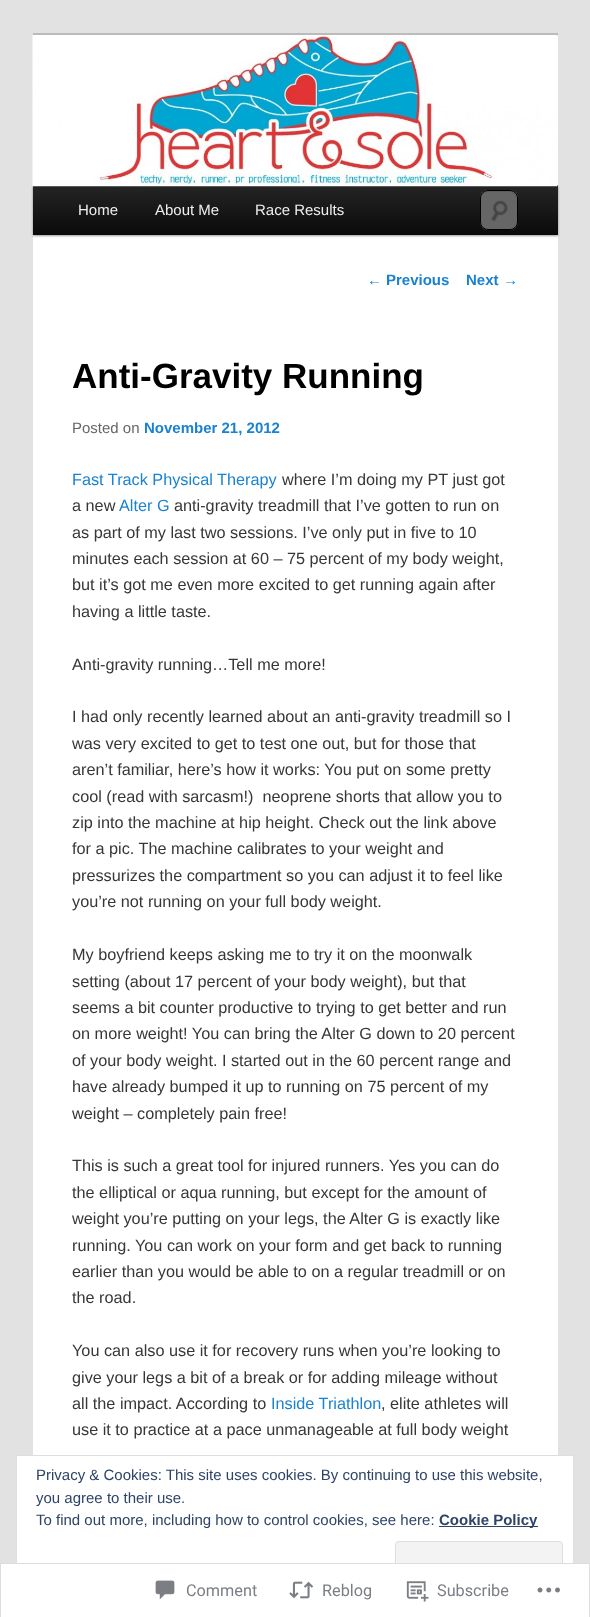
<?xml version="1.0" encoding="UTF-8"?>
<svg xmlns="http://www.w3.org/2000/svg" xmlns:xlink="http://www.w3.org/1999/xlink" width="590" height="1617">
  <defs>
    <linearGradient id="g1" gradientUnits="userSpaceOnUse" x1="295" y1="185" x2="295" y2="235"><stop offset="0" stop-color="#252525" /><stop offset="1" stop-color="#0a0a0a" /></linearGradient>
  </defs>
  <rect width="100%" height="100%" fill="#e2e2e2" />
  <rect x="33" y="36" width="525" height="1581" fill="#ffffff" />
  <rect x="33" y="33" width="525" height="3" fill="#bbbbbb" />
  <rect x="33" y="186" width="525" height="50" fill="#000000" fill-opacity="0.4" filter="blur(1px)" />
  <rect x="33" y="185" width="525" height="50" fill="url(#g1)" />
  <image x="32" y="35" width="526" height="152" xlink:href="image1.png" />
  <rect x="480" y="190" width="38" height="40" rx="8" fill="#666666" />
  <image x="491" y="200" width="17" height="22" xlink:href="image2.png" />
  <path d="M 488 192 h 22 c 3 0 6 3 6 7 c 0 -7.5 -3 -8 -10 -8 h -15 c -7 0 -10 0.5 -10 8 c 0 -4 3 -7 7 -7 z" fill="#5c5c5c" />
  <rect x="480.5" y="190.5" width="37" height="39" rx="7.5" fill="none" stroke="#000000" />
  <rect x="16.5" y="1455.5" width="557" height="145" fill="#ffffff" stroke="#dedede" />
  <rect x="439" y="1526" width="99" height="1" fill="#2e4467" />
  <rect x="395.5" y="1541.5" width="167" height="48" rx="3.5" fill="#f3f3f3" stroke="#dedede" />
  <rect y="1563" width="590" height="54" fill="#ffffff" fill-opacity="0.98" />
  <rect x="0.5" y="1563.5" width="589" height="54" fill="none" stroke="#dcdcde" stroke-opacity="0.98" />
  <image x="155" y="1580" width="20" height="20" xlink:href="image3.png" />
  <image x="289" y="1581" width="25" height="18" xlink:href="image4.png" />
  <image x="406" y="1581" width="23" height="21" xlink:href="image5.png" />
  <image x="537" y="1587" width="23" height="6" xlink:href="image6.png" />
  <text x="78" y="215" style="font-family: Liberation Sans; font-size: 15px; fill: #eeeeee">Home</text>
  <text x="155" y="215" style="font-family: Liberation Sans; font-size: 15px; fill: #eeeeee">About Me</text>
  <text x="255" y="215" style="font-family: Liberation Sans; font-size: 15px; fill: #eeeeee">Race Results</text>
  <text x="367" y="285" style="font-family: Liberation Sans; font-size: 15px; fill: #1982d1">←</text>
  <text x="386" y="285" style="font-family: Liberation Sans; font-size: 15px; font-weight: bold; fill: #1982d1">Previous</text>
  <text x="466" y="285" style="font-family: Liberation Sans; font-size: 15px; font-weight: bold; fill: #1982d1">Next</text>
  <text x="503" y="285" style="font-family: Liberation Sans; font-size: 15px; fill: #1982d1">→</text>
  <text x="72" y="388" style="font-family: Liberation Sans; font-size: 35px; font-weight: bold; fill: #000000">Anti-Gravity Running</text>
  <text x="72" y="433" style="font-family: Liberation Sans; font-size: 15px; fill: #666666">Posted on</text>
  <text x="144" y="433" style="font-family: Liberation Sans; font-size: 15px; font-weight: bold; fill: #1982d1">November 21, 2012</text>
  <text x="72" y="485" style="font-family: Liberation Sans; font-size: 16.25px; fill: #1982d1">Fast Track Physical Therapy</text>
  <text x="282" y="485" style="font-family: Liberation Sans; font-size: 16.25px; fill: #373737">where I’m doing my PT just got</text>
  <text x="72" y="511" style="font-family: Liberation Sans; font-size: 16.25px; fill: #373737">a new</text>
  <text x="119" y="511" style="font-family: Liberation Sans; font-size: 16.25px; fill: #1982d1">Alter G</text>
  <text x="174" y="511" style="font-family: Liberation Sans; font-size: 16.25px; fill: #373737">anti-gravity treadmill that I’ve gotten to run on</text>
  <text x="72" y="538" style="font-family: Liberation Sans; font-size: 16.25px; fill: #373737">as part of my last two sessions. I’ve only put in five to 10</text>
  <text x="72" y="564" style="font-family: Liberation Sans; font-size: 16.25px; fill: #373737">minutes each session at 60 – 75 percent of my body weight,</text>
  <text x="72" y="590" style="font-family: Liberation Sans; font-size: 16.25px; fill: #373737">but it’s got me even more excited to get running again after</text>
  <text x="72" y="617" style="font-family: Liberation Sans; font-size: 16.25px; fill: #373737">having a little taste.</text>
  <text x="72" y="670" style="font-family: Liberation Sans; font-size: 16.25px; fill: #373737">Anti-gravity running…Tell me more!</text>
  <text x="72" y="722" style="font-family: Liberation Sans; font-size: 16.25px; fill: #373737">I had only recently learned about an anti-gravity treadmill so I</text>
  <text x="72" y="749" style="font-family: Liberation Sans; font-size: 16.25px; fill: #373737">was very excited to get to test one out, but for those that</text>
  <text x="72" y="775" style="font-family: Liberation Sans; font-size: 16.25px; fill: #373737">aren’t familiar, here’s how it works: You put on some pretty</text>
  <text x="72" y="802" style="font-family: Liberation Sans; font-size: 16.25px; fill: #373737" xml:space="preserve">cool (read with sarcasm!)  neoprene shorts that allow you to</text>
  <text x="72" y="828" style="font-family: Liberation Sans; font-size: 16.25px; fill: #373737">zip into the machine at hip height. Check out the link above</text>
  <text x="72" y="854" style="font-family: Liberation Sans; font-size: 16.25px; fill: #373737">for a pic. The machine calibrates to your weight and</text>
  <text x="72" y="881" style="font-family: Liberation Sans; font-size: 16.25px; fill: #373737">pressurizes the compartment so you can adjust it to feel like</text>
  <text x="72" y="907" style="font-family: Liberation Sans; font-size: 16.25px; fill: #373737">you’re not running on your full body weight.</text>
  <text x="72" y="960" style="font-family: Liberation Sans; font-size: 16.25px; fill: #373737">My boyfriend keeps asking me to try it on the moonwalk</text>
  <text x="72" y="987" style="font-family: Liberation Sans; font-size: 16.25px; fill: #373737">setting (about 17 percent of your body weight), but that</text>
  <text x="72" y="1013" style="font-family: Liberation Sans; font-size: 16.25px; fill: #373737">seems a bit counter productive to trying to get better and run</text>
  <text x="72" y="1039" style="font-family: Liberation Sans; font-size: 16.25px; fill: #373737">on more weight! You can bring the Alter G down to 20 percent</text>
  <text x="72" y="1066" style="font-family: Liberation Sans; font-size: 16.25px; fill: #373737">of your body weight. I started out in the 60 percent range and</text>
  <text x="72" y="1092" style="font-family: Liberation Sans; font-size: 16.25px; fill: #373737">have already bumped it up to running on 75 percent of my</text>
  <text x="72" y="1119" style="font-family: Liberation Sans; font-size: 16.25px; fill: #373737">weight – completely pain free!</text>
  <text x="72" y="1171" style="font-family: Liberation Sans; font-size: 16.25px; fill: #373737">This is such a great tool for injured runners. Yes you can do</text>
  <text x="72" y="1198" style="font-family: Liberation Sans; font-size: 16.25px; fill: #373737">the elliptical or aqua running, but except for the amount of</text>
  <text x="72" y="1224" style="font-family: Liberation Sans; font-size: 16.25px; fill: #373737">weight you’re putting on your legs, the Alter G is exactly like</text>
  <text x="72" y="1251" style="font-family: Liberation Sans; font-size: 16.25px; fill: #373737">running. You can work on your form and get back to running</text>
  <text x="72" y="1277" style="font-family: Liberation Sans; font-size: 16.25px; fill: #373737">earlier than you would be able to on a regular treadmill or on</text>
  <text x="72" y="1303" style="font-family: Liberation Sans; font-size: 16.25px; fill: #373737">the road.</text>
  <text x="72" y="1356" style="font-family: Liberation Sans; font-size: 16.25px; fill: #373737">You can also use it for recovery runs when you’re looking to</text>
  <text x="72" y="1383" style="font-family: Liberation Sans; font-size: 16.25px; fill: #373737">give your legs a bit of a break or for adding mileage without</text>
  <text x="72" y="1409" style="font-family: Liberation Sans; font-size: 16.25px; fill: #373737">all the impact. According to</text>
  <text x="271" y="1409" style="font-family: Liberation Sans; font-size: 16.25px; fill: #1982d1">Inside Triathlon</text>
  <text x="381" y="1409" style="font-family: Liberation Sans; font-size: 16.25px; fill: #373737">, elite athletes will</text>
  <text x="72" y="1435" style="font-family: Liberation Sans; font-size: 16.25px; fill: #373737">use it to practice at a pace unmanageable at full body weight</text>
  <text x="36" y="1480" style="font-family: Liberation Sans; font-size: 15px; fill: #2e4467">Privacy &amp; Cookies: This site uses cookies. By continuing to use this website,</text>
  <text x="36" y="1503" style="font-family: Liberation Sans; font-size: 15px; fill: #2e4467">you agree to their use.</text>
  <text x="36" y="1525" style="font-family: Liberation Sans; font-size: 15px; fill: #2e4467">To find out more, including how to control cookies, see here:</text>
  <text x="439" y="1525" style="font-family: Liberation Sans; font-size: 15px; font-weight: bold; fill: #2e4467">Cookie Policy</text>
  <text x="186" y="1596" style="font-family: Roboto; font-size: 16.25px; fill: #7b7f85">Comment</text>
  <text x="322" y="1596" style="font-family: Roboto; font-size: 16.25px; fill: #7b7f85">Reblog</text>
  <text x="437" y="1596" style="font-family: Roboto; font-size: 16.25px; fill: #7b7f85">Subscribe</text>
</svg>
